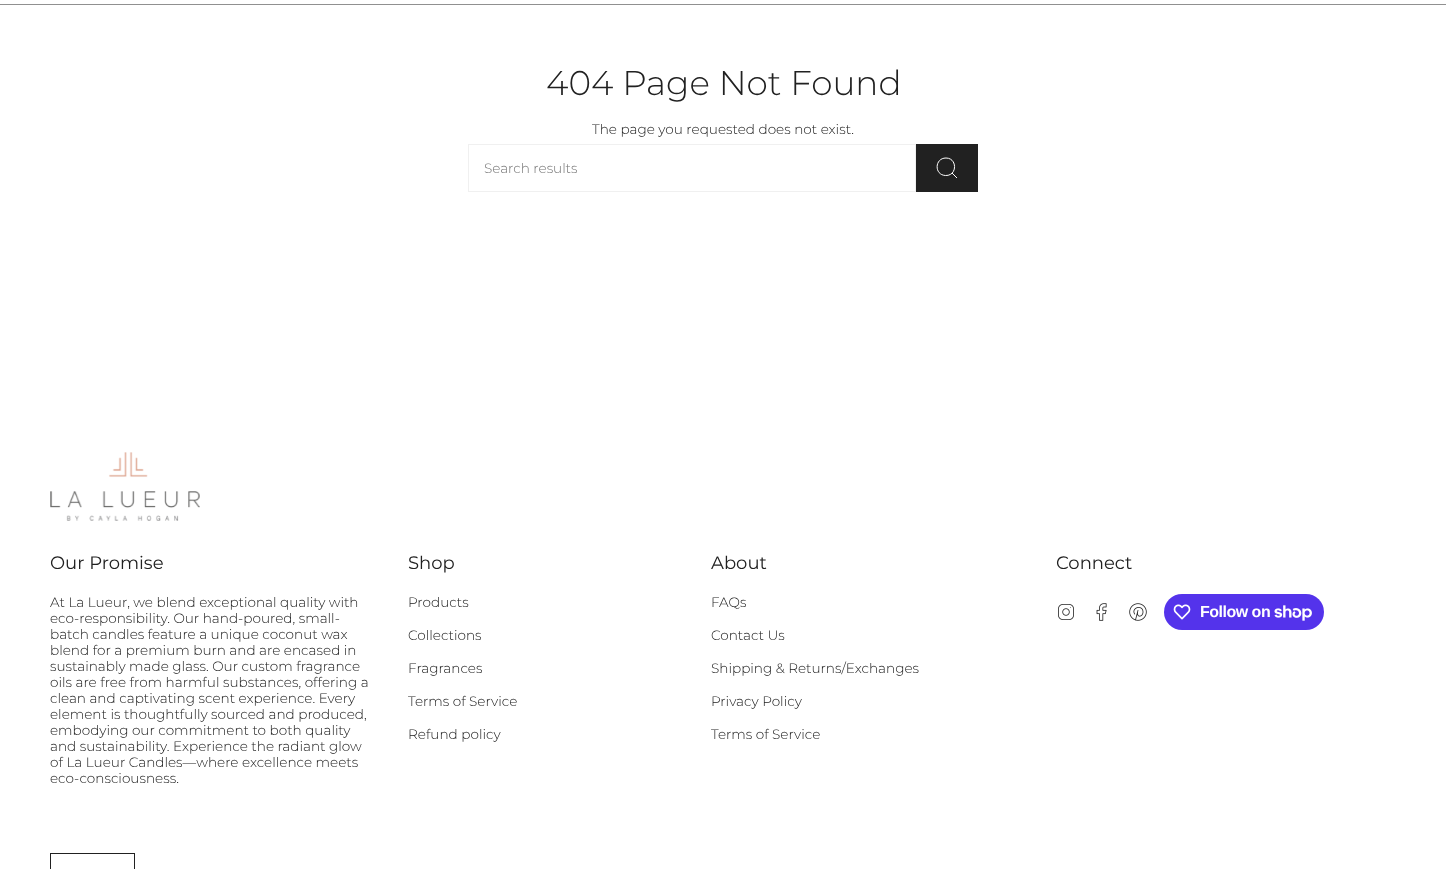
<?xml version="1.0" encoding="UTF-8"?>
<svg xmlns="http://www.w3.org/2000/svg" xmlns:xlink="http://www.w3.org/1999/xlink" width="1446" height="869">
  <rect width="100%" height="100%" fill="#ffffff" />
  <rect y="4" width="1446" height="1" fill="#909090" />
  <rect x="468.5" y="144.5" width="447" height="47" fill="none" stroke="#f0f0f0" />
  <rect x="916" y="144" width="62" height="48" fill="#212121" />
  <path d="M 946 158 c 11.5 0 11.5 18 -0.5 17.5 c -11.5 -0.5 -11 -17.5 0.5 -17.5 z m 6 15 l 5 5" fill="none" stroke="#ffffff" />
  <image x="50" y="452" width="150" height="69" xlink:href="image1.png" />
  <image x="1058" y="604" width="16" height="16" xlink:href="image2.png" />
  <image x="1096" y="603" width="11" height="18" xlink:href="image3.png" />
  <image x="1129" y="603" width="18" height="18" xlink:href="image4.png" />
  <rect x="1164" y="594" width="160" height="36" rx="18" fill="#5433eb" />
  <image x="1173" y="604" width="18" height="16" xlink:href="image5.png" />
  <image x="1274" y="605" width="38" height="16" xlink:href="image6.png" />
  <rect x="50.5" y="853.5" width="84" height="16" fill="none" stroke="#212121" />
  <text x="546" y="95" style="font-family: Montserrat; font-size: 34.25px; font-weight: 300; fill: #212121">404 Page Not Found</text>
  <text x="592" y="134" style="font-family: Montserrat; font-size: 13.6px; font-weight: 300; fill: #212121">The page you requested does not exist.</text>
  <text x="484" y="173" style="font-family: Montserrat; font-size: 13.6px; font-weight: 300; fill: #757575">Search results</text>
  <text x="50" y="569" style="font-family: Montserrat; font-size: 18px; fill: #212121">Our Promise</text>
  <text x="50" y="607" style="font-family: Montserrat; font-size: 13.6px; font-weight: 300; fill: #212121">At La Lueur, we blend exceptional quality with</text>
  <text x="50" y="623" style="font-family: Montserrat; font-size: 13.6px; font-weight: 300; fill: #212121">eco-responsibility. Our hand-poured, small-</text>
  <text x="50" y="639" style="font-family: Montserrat; font-size: 13.6px; font-weight: 300; fill: #212121">batch candles feature a unique coconut wax</text>
  <text x="50" y="655" style="font-family: Montserrat; font-size: 13.6px; font-weight: 300; fill: #212121">blend for a premium burn and are encased in</text>
  <text x="50" y="671" style="font-family: Montserrat; font-size: 13.6px; font-weight: 300; fill: #212121">sustainably made glass. Our custom fragrance</text>
  <text x="50" y="687" style="font-family: Montserrat; font-size: 13.6px; font-weight: 300; fill: #212121">oils are free from harmful substances, offering a</text>
  <text x="50" y="703" style="font-family: Montserrat; font-size: 13.6px; font-weight: 300; fill: #212121">clean and captivating scent experience. Every</text>
  <text x="50" y="719" style="font-family: Montserrat; font-size: 13.6px; font-weight: 300; fill: #212121">element is thoughtfully sourced and produced,</text>
  <text x="50" y="735" style="font-family: Montserrat; font-size: 13.6px; font-weight: 300; fill: #212121">embodying our commitment to both quality</text>
  <text x="50" y="751" style="font-family: Montserrat; font-size: 13.6px; font-weight: 300; fill: #212121">and sustainability. Experience the radiant glow</text>
  <text x="50" y="767" style="font-family: Montserrat; font-size: 13.6px; font-weight: 300; fill: #212121">of La Lueur Candles—where excellence meets</text>
  <text x="50" y="783" style="font-family: Montserrat; font-size: 13.6px; font-weight: 300; fill: #212121">eco-consciousness.</text>
  <text x="408" y="569" style="font-family: Montserrat; font-size: 18px; fill: #212121">Shop</text>
  <text x="408" y="607" style="font-family: Montserrat; font-size: 13.6px; font-weight: 300; fill: #212121">Products</text>
  <text x="408" y="640" style="font-family: Montserrat; font-size: 13.6px; font-weight: 300; fill: #212121">Collections</text>
  <text x="408" y="673" style="font-family: Montserrat; font-size: 13.6px; font-weight: 300; fill: #212121">Fragrances</text>
  <text x="408" y="706" style="font-family: Montserrat; font-size: 13.6px; font-weight: 300; fill: #212121">Terms of Service</text>
  <text x="408" y="739" style="font-family: Montserrat; font-size: 13.6px; font-weight: 300; fill: #212121">Refund policy</text>
  <text x="711" y="569" style="font-family: Montserrat; font-size: 18px; fill: #212121">About</text>
  <text x="711" y="607" style="font-family: Montserrat; font-size: 13.6px; font-weight: 300; fill: #212121">FAQs</text>
  <text x="711" y="640" style="font-family: Montserrat; font-size: 13.6px; font-weight: 300; fill: #212121">Contact Us</text>
  <text x="711" y="673" style="font-family: Montserrat; font-size: 13.6px; font-weight: 300; fill: #212121">Shipping &amp; Returns/Exchanges</text>
  <text x="711" y="706" style="font-family: Montserrat; font-size: 13.6px; font-weight: 300; fill: #212121">Privacy Policy</text>
  <text x="711" y="739" style="font-family: Montserrat; font-size: 13.6px; font-weight: 300; fill: #212121">Terms of Service</text>
  <text x="1056" y="569" style="font-family: Montserrat; font-size: 18px; fill: #212121">Connect</text>
  <text x="1200" y="617" style="font-family: Liberation Sans; font-size: 16px; font-weight: bold; letter-spacing: -0.5px; fill: #ffffff">Follow on</text>
</svg>
